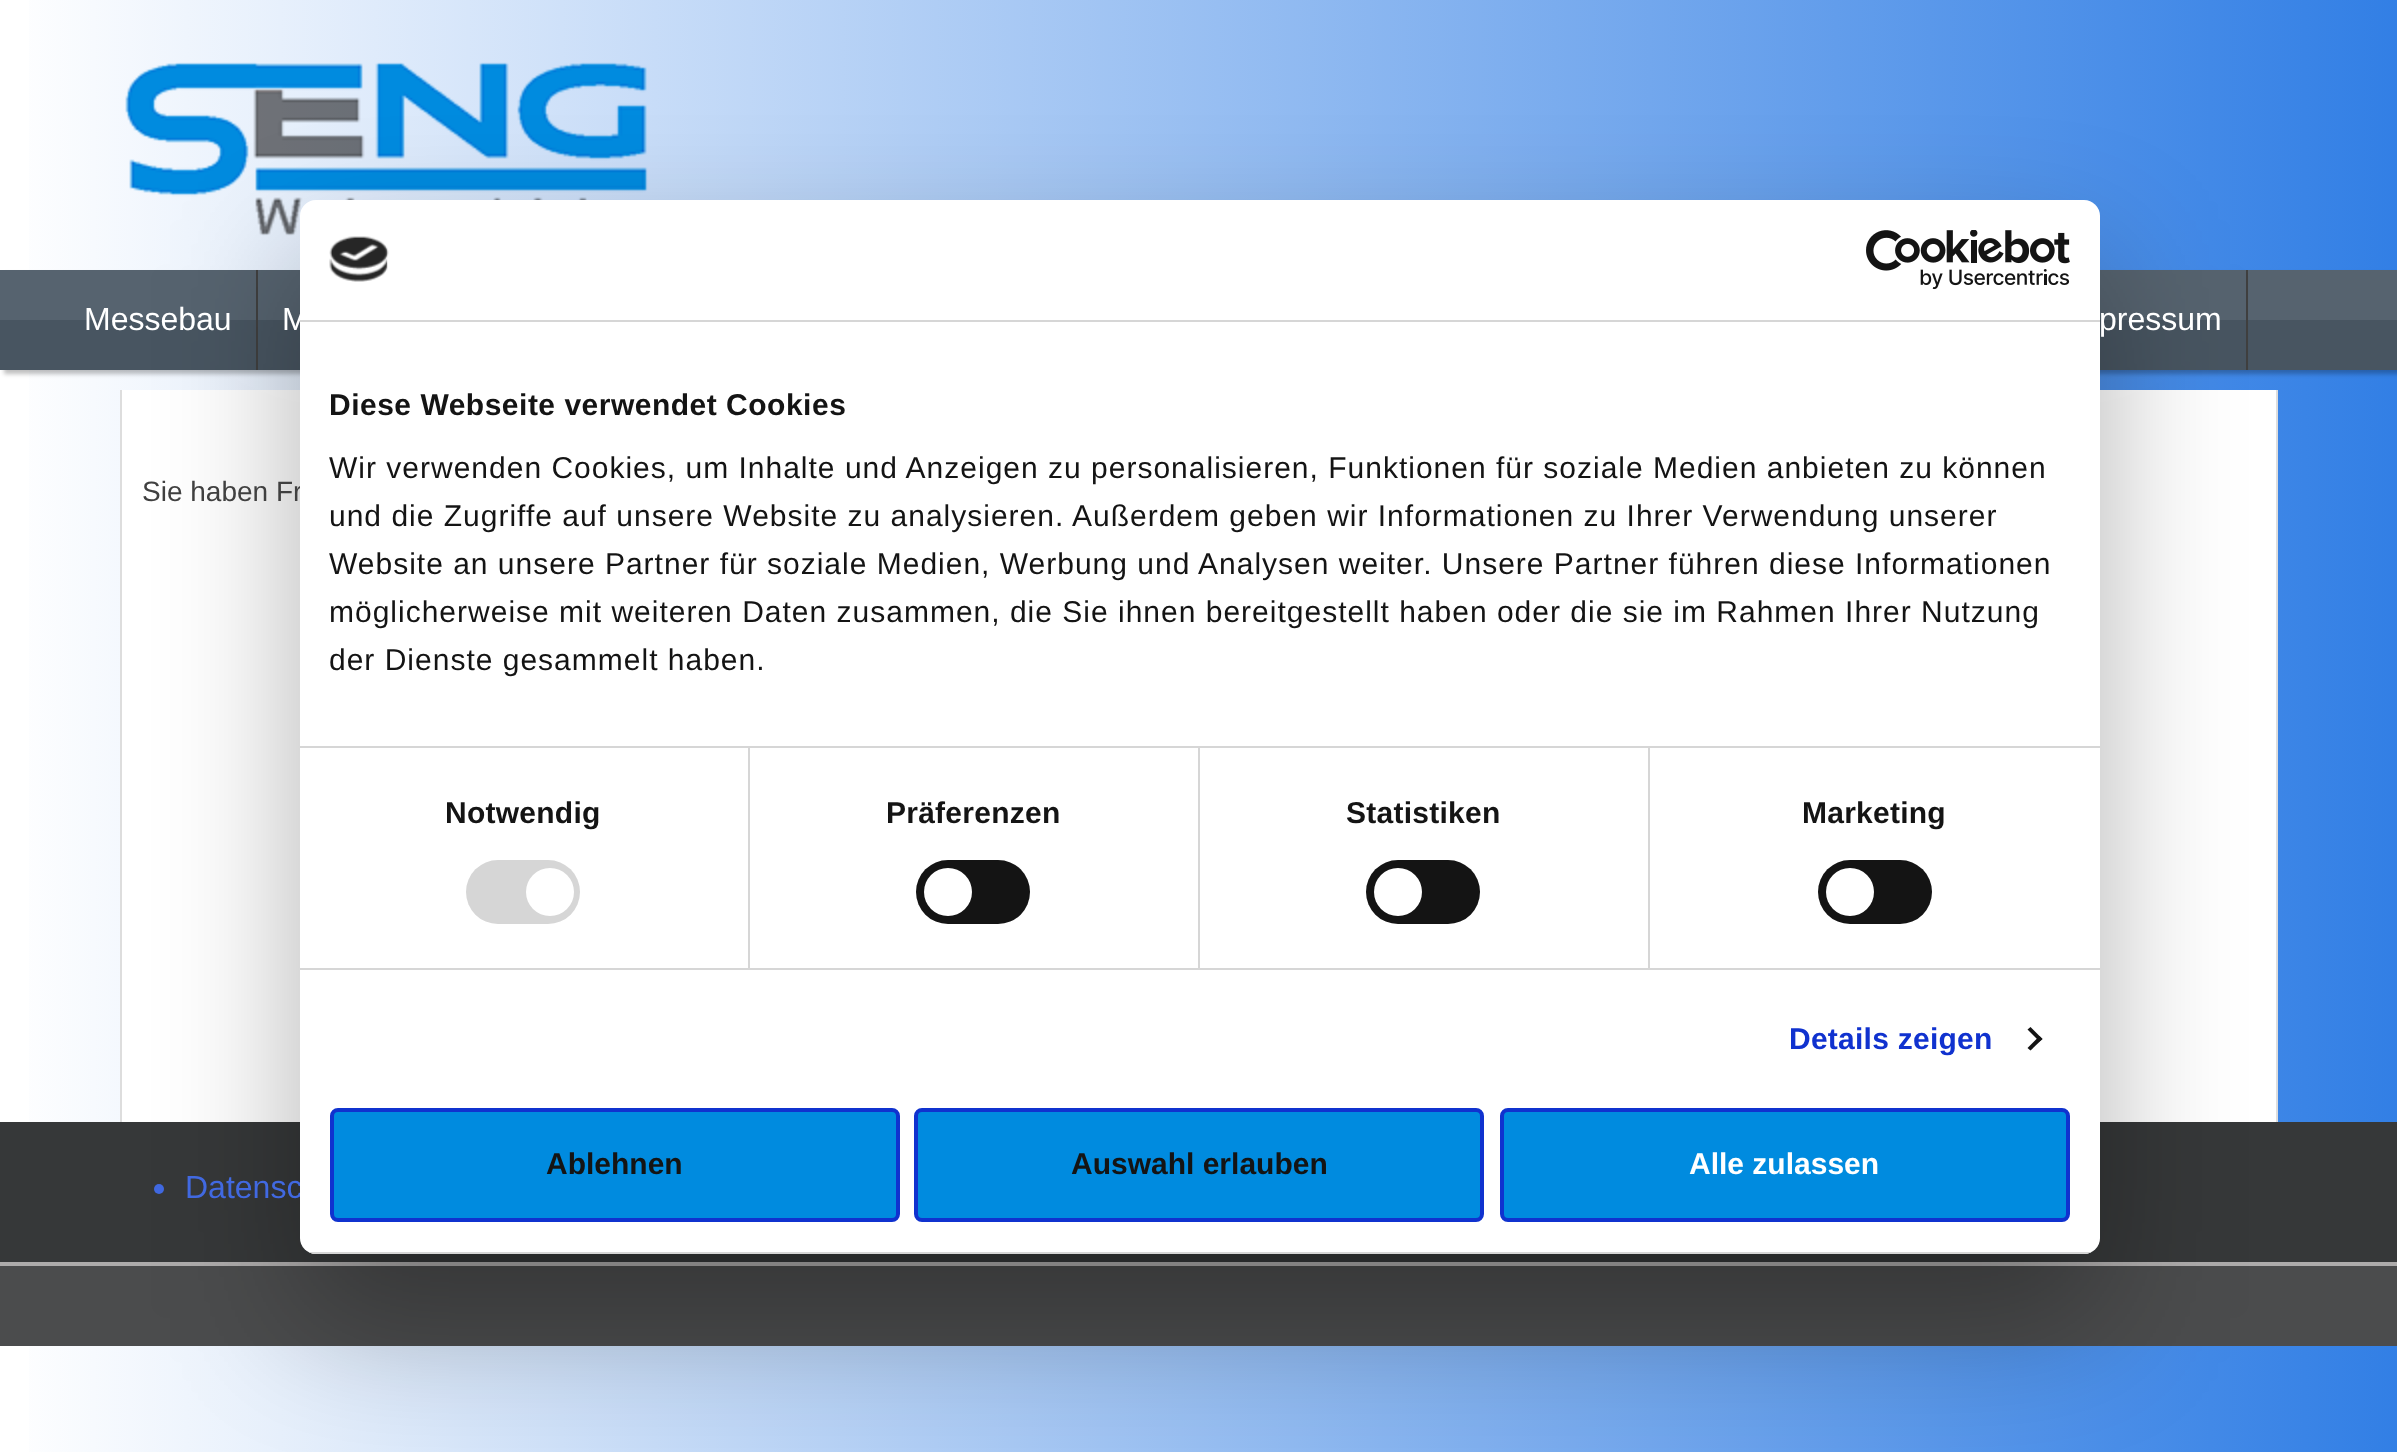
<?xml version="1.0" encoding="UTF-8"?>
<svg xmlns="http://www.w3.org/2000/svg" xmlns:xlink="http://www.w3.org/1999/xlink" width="2397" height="1452">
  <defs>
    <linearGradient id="g1" gradientUnits="userSpaceOnUse" x1="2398" y1="726" x2="0" y2="726"><stop offset="0" stop-color="#327fe5" /><stop offset="1" stop-color="#ffffff" /></linearGradient>
    <clipPath id="clip1"><rect x="300" y="200" width="1800" height="1054" rx="16" /></clipPath>
  </defs>
  <rect width="100%" height="100%" fill="#ffffff" />
  <rect x="29" width="2368" height="1452" fill="url(#g1)" />
  <image x="125" y="62" width="523" height="174" xlink:href="image1.png" />
  <rect x="4" y="274" width="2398" height="100" fill="#000000" fill-opacity="0.25" filter="blur(2px)" />
  <rect y="320" width="2397" height="50" fill="#485561" />
  <rect y="270" width="2397" height="50" fill="#56636f" />
  <rect x="256" y="270" width="2" height="100" fill="#404040" />
  <rect x="2246" y="270" width="2" height="100" fill="#404040" />
  <rect x="122" y="390" width="2154" height="732" fill="#ffffff" />
  <rect x="2276" y="390" width="2" height="732" fill="#dddddd" />
  <rect x="120" y="390" width="2" height="732" fill="#dddddd" />
  <rect y="1122" width="2397" height="140" fill="#363839" />
  <circle cx="159" cy="1189" r="5" fill="#4169e1" />
  <rect y="1266" width="2397" height="80" fill="#4b4c4d" />
  <rect y="1262" width="2397" height="4" fill="#adabab" />
  <rect x="300" y="264" width="1800" height="1054" rx="16" fill="#000000" fill-opacity="0.3" filter="blur(68px)" />
  <text x="84" y="330" style="font-family: Liberation Sans; font-size: 32px; fill: #ffffff">Messebau</text>
  <text x="282" y="330" style="font-family: Liberation Sans; font-size: 32px; fill: #ffffff">M</text>
  <text x="2099" y="330" style="font-family: Liberation Sans; font-size: 32px; fill: #ffffff">pressum</text>
  <text x="142" y="501" style="font-family: Liberation Sans; font-size: 28px; fill: #404040">Sie haben Fr</text>
  <text x="185" y="1198" style="font-family: Liberation Sans; font-size: 32px; fill: #4169e1">Datensc</text>
  <rect x="300" y="200" width="1800" height="1054" rx="16" fill="#ffffff" />
  <rect x="300" y="320" width="1800" height="2" fill="#d6d6d6" />
  <image x="329" y="236" width="60" height="46" xlink:href="image2.png" />
  <image x="1866" y="230" width="204" height="60" xlink:href="image3.png" />
  <rect x="300" y="746" width="1800" height="2" fill="#d6d6d6" />
  <text x="329" y="415" style="font-family: Liberation Sans; font-size: 30px; font-weight: bold; letter-spacing: 0.5px; fill: #141414">Diese Webseite verwendet Cookies</text>
  <text x="329" y="478" style="font-family: Liberation Sans; font-size: 30px; letter-spacing: 1px; fill: #141414">Wir verwenden Cookies, um Inhalte und Anzeigen zu personalisieren, Funktionen für soziale Medien anbieten zu können</text>
  <text x="329" y="526" style="font-family: Liberation Sans; font-size: 30px; letter-spacing: 1px; fill: #141414">und die Zugriffe auf unsere Website zu analysieren. Außerdem geben wir Informationen zu Ihrer Verwendung unserer</text>
  <text x="329" y="574" style="font-family: Liberation Sans; font-size: 30px; letter-spacing: 1px; fill: #141414">Website an unsere Partner für soziale Medien, Werbung und Analysen weiter. Unsere Partner führen diese Informationen</text>
  <text x="329" y="622" style="font-family: Liberation Sans; font-size: 30px; letter-spacing: 1px; fill: #141414">möglicherweise mit weiteren Daten zusammen, die Sie ihnen bereitgestellt haben oder die sie im Rahmen Ihrer Nutzung</text>
  <text x="329" y="670" style="font-family: Liberation Sans; font-size: 30px; letter-spacing: 1px; fill: #141414">der Dienste gesammelt haben.</text>
  <rect x="300" y="968" width="1800" height="2" fill="#d6d6d6" />
  <rect x="748" y="748" width="2" height="220" fill="#d6d6d6" />
  <text x="445" y="823" style="font-family: Liberation Sans; font-size: 30px; font-weight: bold; letter-spacing: 0.25px; fill: #141414">Notwendig</text>
  <rect x="466" y="860" width="114" height="64" rx="32" fill="#d6d6d6" />
  <circle cx="550" cy="892" r="24" fill="#ffffff" />
  <rect x="1198" y="748" width="2" height="220" fill="#d6d6d6" />
  <text x="886" y="823" style="font-family: Liberation Sans; font-size: 30px; font-weight: bold; letter-spacing: 0.25px; fill: #141414">Präferenzen</text>
  <rect x="916" y="860" width="114" height="64" rx="32" fill="#141414" />
  <circle cx="948" cy="892" r="24" fill="#ffffff" />
  <rect x="1648" y="748" width="2" height="220" fill="#d6d6d6" />
  <text x="1346" y="823" style="font-family: Liberation Sans; font-size: 30px; font-weight: bold; letter-spacing: 0.25px; fill: #141414">Statistiken</text>
  <rect x="1366" y="860" width="114" height="64" rx="32" fill="#141414" />
  <circle cx="1398" cy="892" r="24" fill="#ffffff" />
  <text x="1802" y="823" style="font-family: Liberation Sans; font-size: 30px; font-weight: bold; letter-spacing: 0.25px; fill: #141414">Marketing</text>
  <rect x="1818" y="860" width="114" height="64" rx="32" fill="#141414" />
  <circle cx="1850" cy="892" r="24" fill="#ffffff" />
  <text x="1789" y="1049" style="font-family: Liberation Sans; font-size: 30px; font-weight: bold; letter-spacing: 0.25px; fill: #1032cf">Details zeigen</text>
  <path d="M 2030.5 1027 l 12 12 l -3 2.5 l -12 -12 z" fill="#141414" />
  <path d="M 2039.5 1036 l 3 3 l -12 11.5 l -3 -2.5 z" fill="#141414" />
  <g clip-path="url(#clip1)">
    <rect x="300" y="1252" width="1800" height="2" fill="#d6d6d6" />
  </g>
  <rect x="332" y="1110" width="566" height="110" rx="6" fill="#008bdf" stroke="#1032cf" stroke-width="4" />
  <text x="546" y="1174" style="font-family: Liberation Sans; font-size: 30px; font-weight: bold; fill: #141414">Ablehnen</text>
  <rect x="916" y="1110" width="566" height="110" rx="6" fill="#008bdf" stroke="#1032cf" stroke-width="4" />
  <text x="1071" y="1174" style="font-family: Liberation Sans; font-size: 30px; font-weight: bold; fill: #141414">Auswahl erlauben</text>
  <rect x="1502" y="1110" width="566" height="110" rx="6" fill="#008bdf" stroke="#1032cf" stroke-width="4" />
  <text x="1689" y="1174" style="font-family: Liberation Sans; font-size: 30px; font-weight: bold; fill: #ffffff">Alle zulassen</text>
</svg>
